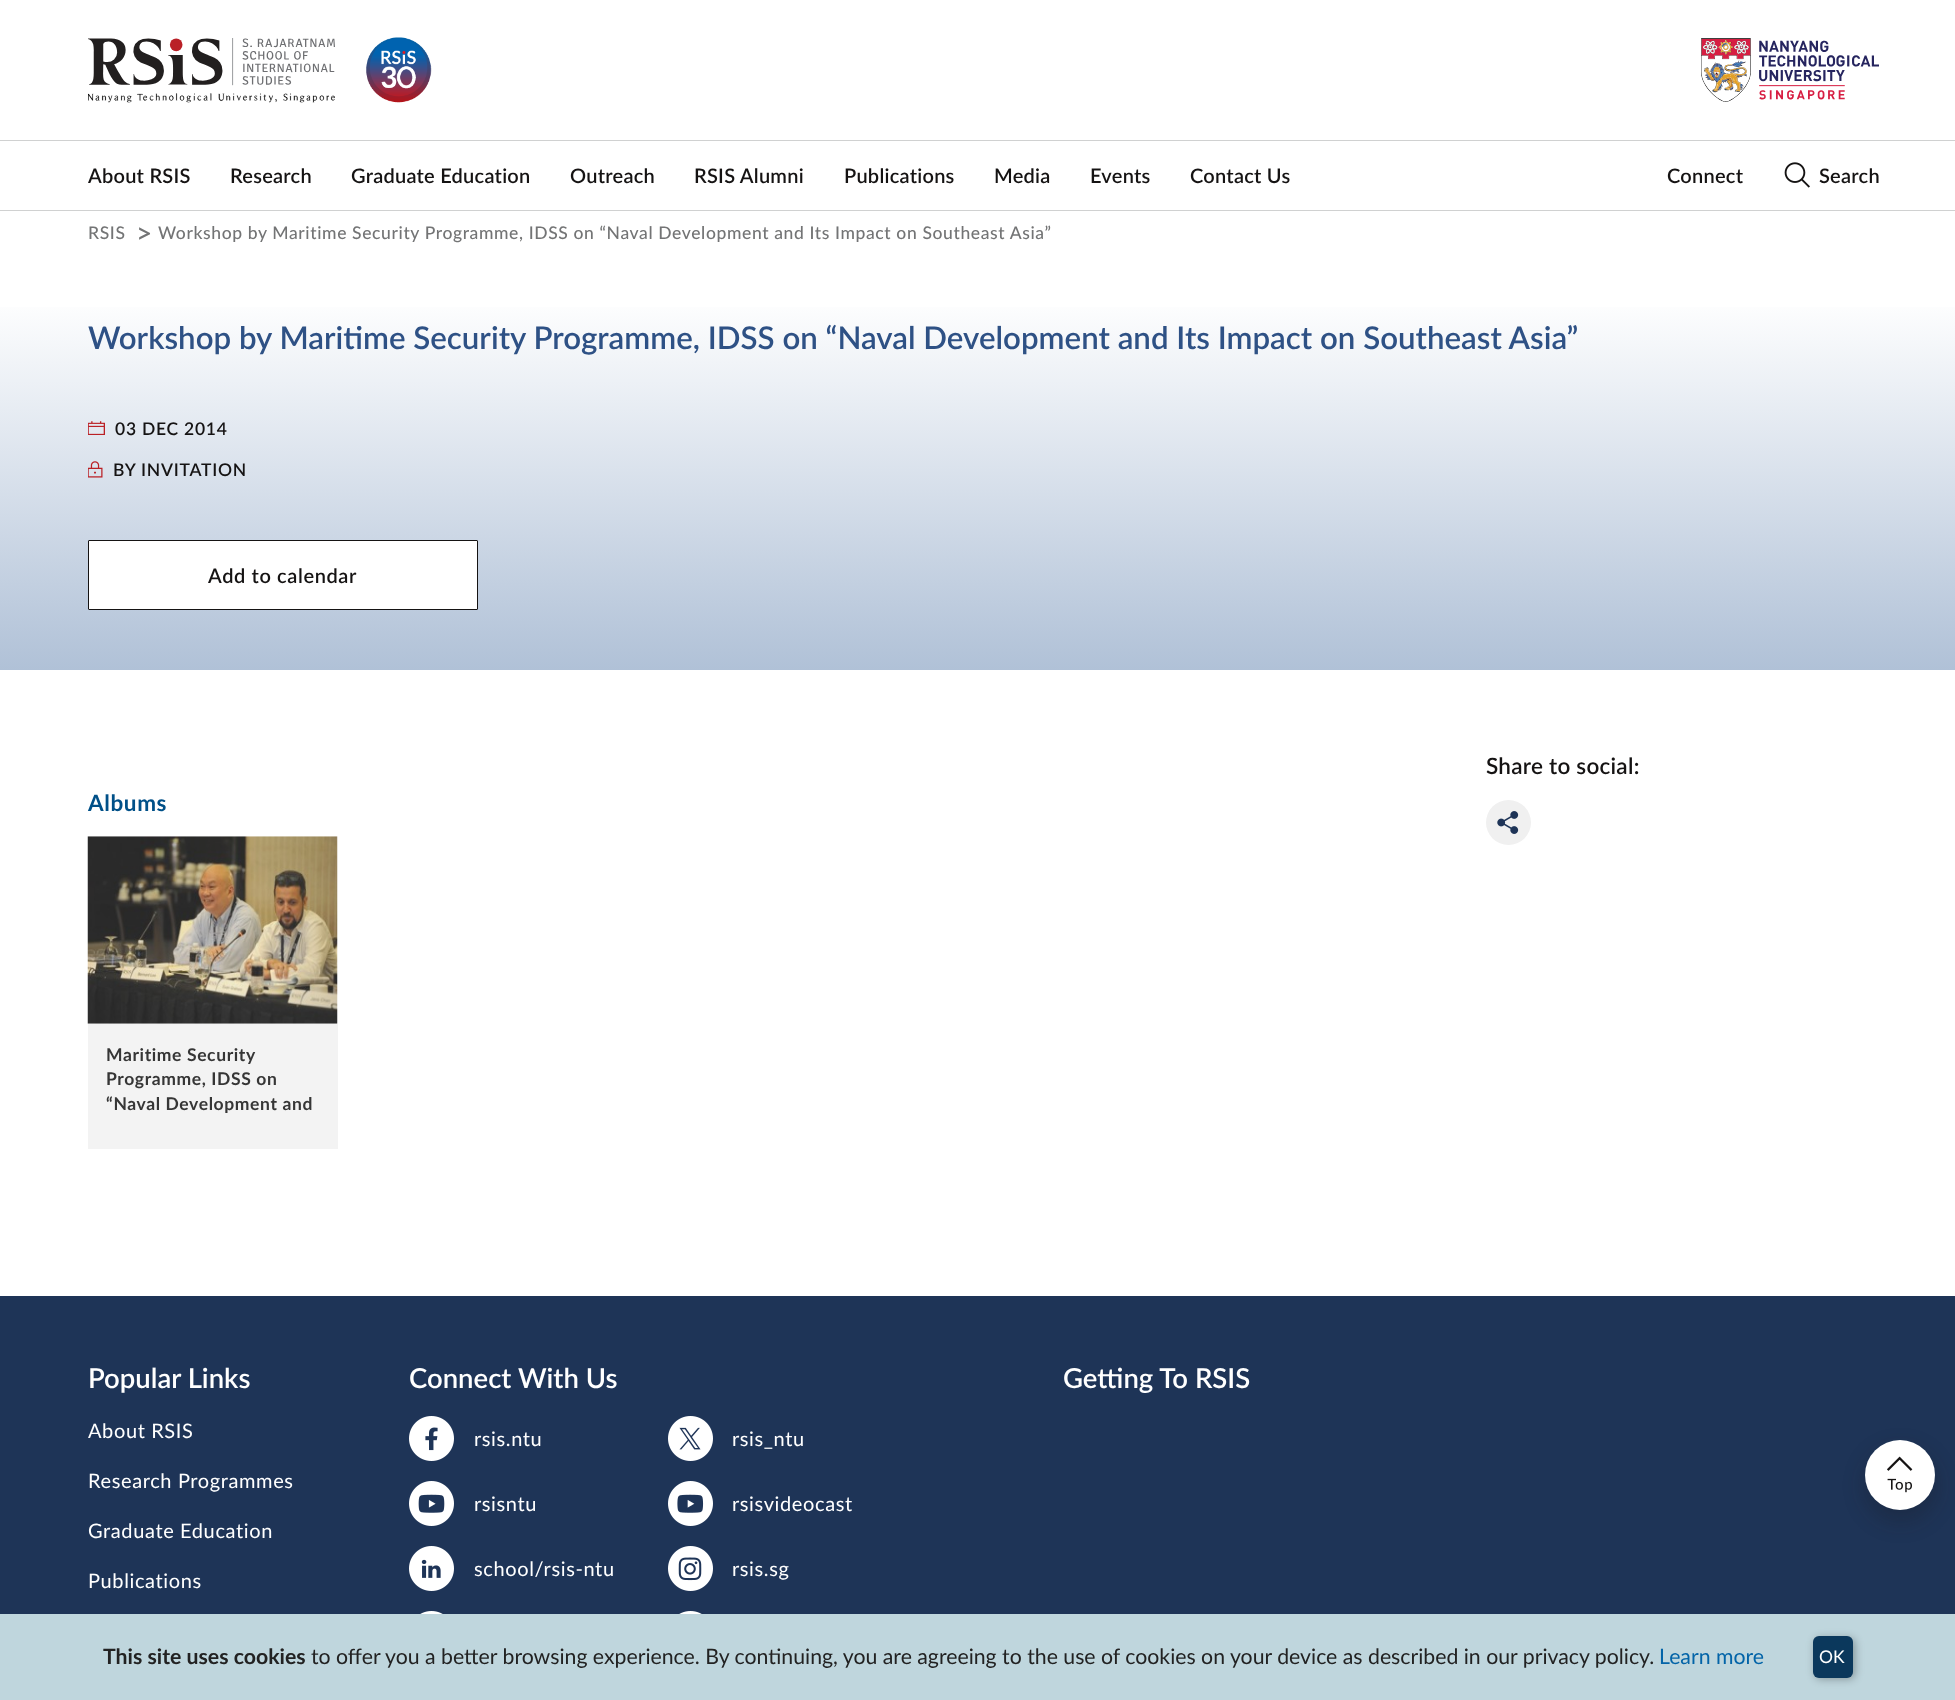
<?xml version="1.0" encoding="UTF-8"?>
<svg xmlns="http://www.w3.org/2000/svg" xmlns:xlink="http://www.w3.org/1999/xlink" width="1955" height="1700">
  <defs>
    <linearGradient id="g1" gradientUnits="userSpaceOnUse" x1="978" y1="670" x2="978" y2="254"><stop offset="0" stop-color="#b0c1d7" /><stop offset="0.9" stop-color="#ffffff" /></linearGradient>
  </defs>
  <rect width="100%" height="100%" fill="#ffffff" />
  <image x="88" y="38" width="247" height="65" xlink:href="image1.png" />
  <image x="366" y="37" width="66" height="66" xlink:href="image2.png" />
  <image x="1701" y="38" width="178" height="64" xlink:href="image3.png" />
  <rect y="140" width="1955" height="1" fill="#d0d1d1" />
  <rect y="210" width="1955" height="1" fill="#d0d1d1" />
  <image x="1784" y="162" width="26" height="26" xlink:href="image4.png" />
  <rect y="307" width="1955" height="363" fill="url(#g1)" />
  <image x="88" y="421" width="17" height="14" xlink:href="image5.png" />
  <image x="88" y="461" width="15" height="17" xlink:href="image6.png" />
  <rect x="88.5" y="540.5" width="389" height="69" rx="0.5" fill="#ffffff" stroke="#151313" />
  <circle cx="1508.5" cy="822.5" r="22.5" fill="#f0f0f0" />
  <image x="1497" y="811" width="22" height="23" xlink:href="image7.png" />
  <rect x="88" y="1024" width="250" height="125" fill="#f3f3f3" />
  <image x="87" y="836" width="251" height="188" xlink:href="image8.png" />
  <rect y="1296" width="1955" height="318" fill="#1e3457" />
  <image x="409" y="1416" width="45" height="45" xlink:href="image9.png" />
  <image x="668" y="1416" width="45" height="45" xlink:href="image10.png" />
  <image x="409" y="1481" width="45" height="45" xlink:href="image11.png" />
  <image x="668" y="1481" width="45" height="45" xlink:href="image12.png" />
  <image x="409" y="1546" width="45" height="45" xlink:href="image13.png" />
  <image x="668" y="1546" width="45" height="45" xlink:href="image14.png" />
  <image x="420" y="1611" width="23" height="3" xlink:href="image15.png" />
  <image x="679" y="1611" width="23" height="3" xlink:href="image15.png" />
  <rect x="1863" y="1448" width="75" height="75" rx="37.5" fill="#151313" fill-opacity="0.22" filter="blur(10px)" />
  <circle cx="1900" cy="1475" r="35" fill="#ffffff" />
  <image x="1887" y="1456" width="26" height="37" xlink:href="image16.png" />
  <rect y="1614" width="1955" height="86" fill="#bfd6dd" />
  <rect x="1815" y="1638" width="40" height="41" rx="6" fill="#000000" fill-opacity="0.31" filter="blur(4.5px)" />
  <rect x="1813" y="1636" width="40" height="42" rx="6" fill="#0b385c" />
  <text x="88" y="183" style="font-family: Lato; font-size: 20px; font-weight: 600; letter-spacing: 0.25px; fill: #151313">About RSIS</text>
  <text x="230" y="183" style="font-family: Lato; font-size: 20px; font-weight: 600; letter-spacing: 0.25px; fill: #151313">Research</text>
  <text x="351" y="183" style="font-family: Lato; font-size: 20px; font-weight: 600; letter-spacing: 0.25px; fill: #151313">Graduate Education</text>
  <text x="570" y="183" style="font-family: Lato; font-size: 20px; font-weight: 600; letter-spacing: 0.25px; fill: #151313">Outreach</text>
  <text x="694" y="183" style="font-family: Lato; font-size: 20px; font-weight: 600; letter-spacing: 0.25px; fill: #151313">RSIS Alumni</text>
  <text x="844" y="183" style="font-family: Lato; font-size: 20px; font-weight: 600; letter-spacing: 0.25px; fill: #151313">Publications</text>
  <text x="994" y="183" style="font-family: Lato; font-size: 20px; font-weight: 600; letter-spacing: 0.25px; fill: #151313">Media</text>
  <text x="1090" y="183" style="font-family: Lato; font-size: 20px; font-weight: 600; letter-spacing: 0.25px; fill: #151313">Events</text>
  <text x="1190" y="183" style="font-family: Lato; font-size: 20px; font-weight: 600; letter-spacing: 0.25px; fill: #151313">Contact Us</text>
  <text x="1667" y="183" style="font-family: Lato; font-size: 20px; font-weight: 600; letter-spacing: 0.25px; fill: #151313">Connect</text>
  <text x="1819" y="183" style="font-family: Lato; font-size: 20px; font-weight: 600; letter-spacing: 0.25px; fill: #151313">Search</text>
  <text x="88" y="239" style="font-family: Lato; font-size: 17.5px; font-weight: 500; letter-spacing: 0.62px; fill: #737475">RSIS</text>
  <text x="136" y="243" style="font-family: Lato; font-size: 28px; font-weight: 500; letter-spacing: -3px; fill: #737475">&gt;</text>
  <text x="158" y="239" style="font-family: Lato; font-size: 17.5px; font-weight: 500; letter-spacing: 0.62px; fill: #737475">Workshop by Maritime Security Programme, IDSS on “Naval Development and Its Impact on Southeast Asia”</text>
  <text x="88" y="349" style="font-family: Lato; font-size: 31.25px; font-weight: 600; fill: #2e5185">Workshop by Maritime Security Programme, IDSS on “Naval Development and Its Impact on Southeast Asia”</text>
  <text x="115" y="435" style="font-family: Lato; font-size: 17.5px; font-weight: 600; letter-spacing: 0.75px; fill: #151313">03 DEC 2014</text>
  <text x="113" y="476" style="font-family: Lato; font-size: 17.5px; font-weight: 600; letter-spacing: 0.75px; fill: #151313">BY INVITATION</text>
  <text x="208" y="583" style="font-family: Lato; font-size: 20px; font-weight: 600; letter-spacing: 0.62px; fill: #151313">Add to calendar</text>
  <text x="1486" y="774" style="font-family: Lato; font-size: 22.5px; font-weight: 600; letter-spacing: 0.25px; fill: #151313">Share to social:</text>
  <text x="88" y="811" style="font-family: Lato; font-size: 22.5px; font-weight: bold; letter-spacing: 0.62px; fill: #005088">Albums</text>
  <text x="106" y="1061" style="font-family: Lato; font-size: 17.5px; font-weight: bold; letter-spacing: 0.62px; fill: #363636">Maritime Security</text>
  <text x="106" y="1085" style="font-family: Lato; font-size: 17.5px; font-weight: bold; letter-spacing: 0.62px; fill: #363636">Programme, IDSS on</text>
  <text x="106" y="1110" style="font-family: Lato; font-size: 17.5px; font-weight: bold; letter-spacing: 0.62px; fill: #363636">“Naval Development and</text>
  <text x="88" y="1388" style="font-family: Lato; font-size: 27.5px; font-weight: 600; fill: #ffffff">Popular Links</text>
  <text x="88" y="1438" style="font-family: Lato; font-size: 20px; letter-spacing: 0.62px; fill: #ffffff">About RSIS</text>
  <text x="88" y="1488" style="font-family: Lato; font-size: 20px; letter-spacing: 0.62px; fill: #ffffff">Research Programmes</text>
  <text x="88" y="1538" style="font-family: Lato; font-size: 20px; letter-spacing: 0.62px; fill: #ffffff">Graduate Education</text>
  <text x="88" y="1588" style="font-family: Lato; font-size: 20px; letter-spacing: 0.62px; fill: #ffffff">Publications</text>
  <text x="409" y="1388" style="font-family: Lato; font-size: 27.5px; font-weight: 600; fill: #ffffff">Connect With Us</text>
  <text x="474" y="1446" style="font-family: Lato; font-size: 20px; letter-spacing: 0.62px; fill: #ffffff">rsis.ntu</text>
  <text x="732" y="1446" style="font-family: Lato; font-size: 20px; letter-spacing: 0.62px; fill: #ffffff">rsis_ntu</text>
  <text x="474" y="1511" style="font-family: Lato; font-size: 20px; letter-spacing: 0.62px; fill: #ffffff">rsisntu</text>
  <text x="732" y="1511" style="font-family: Lato; font-size: 20px; letter-spacing: 0.62px; fill: #ffffff">rsisvideocast</text>
  <text x="474" y="1576" style="font-family: Lato; font-size: 20px; letter-spacing: 0.62px; fill: #ffffff">school/rsis-ntu</text>
  <text x="732" y="1576" style="font-family: Lato; font-size: 20px; letter-spacing: 0.62px; fill: #ffffff">rsis.sg</text>
  <text x="1063" y="1388" style="font-family: Lato; font-size: 27.5px; font-weight: 600; fill: #ffffff">Getting To RSIS</text>
  <text x="103" y="1664" style="font-family: Lato; font-size: 21.25px; font-weight: bold; fill: #222222">This site uses cookies</text>
  <text x="311" y="1664" style="font-family: Lato; font-size: 21.25px; fill: #222222">to offer you a better browsing experience. By continuing, you are agreeing to the use of cookies on your device as described in our privacy policy.</text>
  <text x="1659" y="1664" style="font-family: Lato; font-size: 21.25px; fill: #0364a8">Learn more</text>
  <text x="1819" y="1663" style="font-family: Lato; font-size: 17.5px; fill: #ffffff">OK</text>
</svg>
